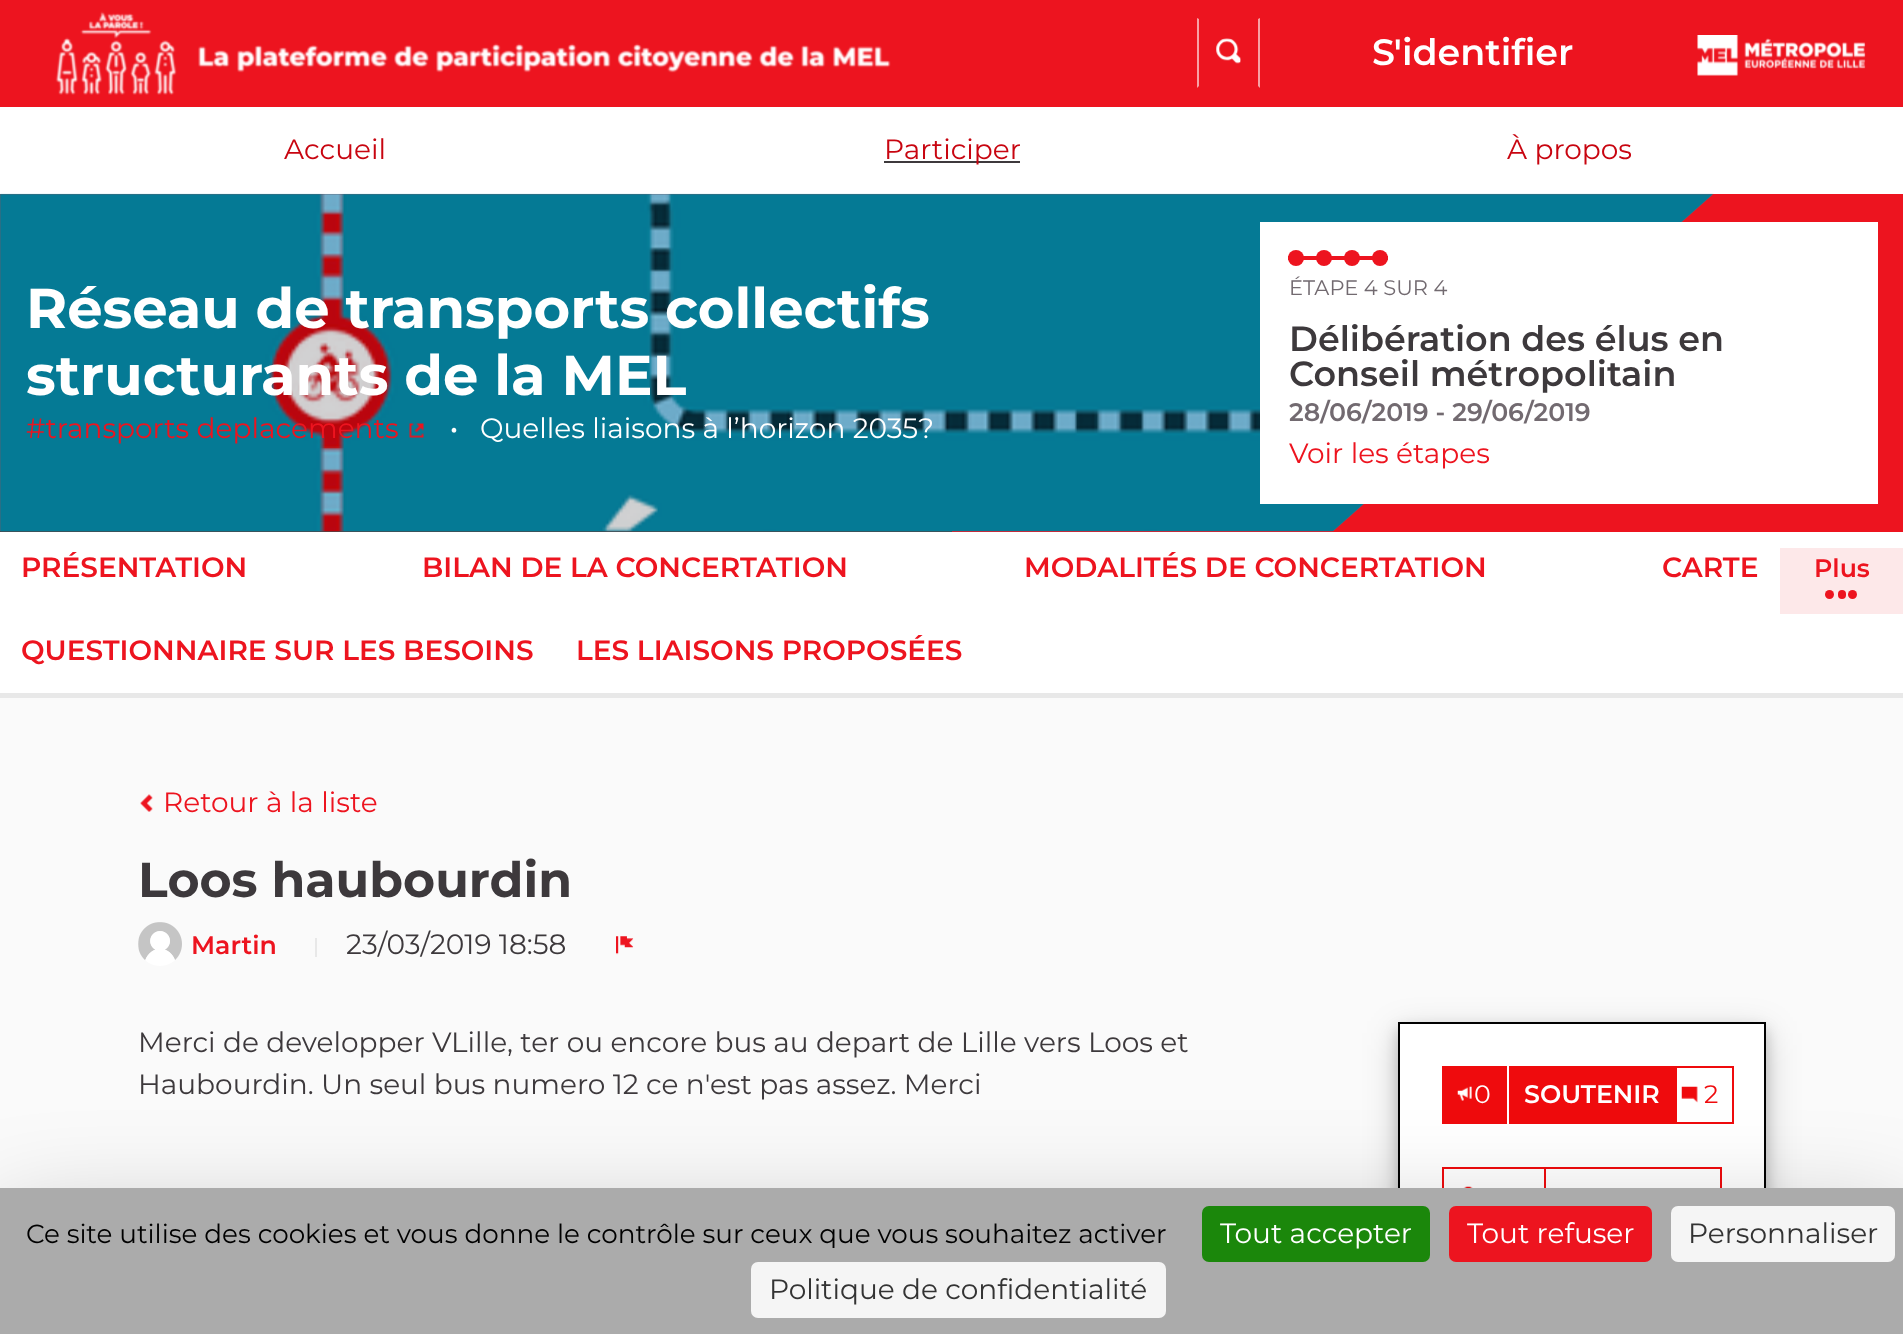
<?xml version="1.0" encoding="UTF-8"?>
<svg xmlns="http://www.w3.org/2000/svg" xmlns:xlink="http://www.w3.org/1999/xlink" width="1903" height="1334">
  <rect width="100%" height="100%" fill="#fafafa" />
  <rect width="1903" height="107" fill="#ed141f" />
  <image x="55" y="11" width="836" height="84" xlink:href="image1.png" />
  <path d="M 1260 18 v 70 l -2 -2 v -67 z" fill="#f8a1a5" />
  <path d="M 1197 88 v -70 l 2 1 v 67 z" fill="#f8a1a5" />
  <image x="1216" y="38" width="25" height="26" xlink:href="image2.png" />
  <image x="1697" y="35" width="169" height="41" xlink:href="image3.png" />
  <rect y="107" width="1903" height="87" fill="#ffffff" />
  <rect x="884" y="161" width="136" height="2" fill="#3d393c" />
  <rect y="531" width="952" height="1" fill="#474549" />
  <rect x="952" y="194" width="951" height="338" fill="#ed141f" />
  <path d="M 0 194 v 337 h 1333 l 380 -337 z" fill="#786f83" />
  <image x="0" y="193" width="1714" height="339" xlink:href="image4.png" />
  <path d="M 0 194 v 337 h 1333 l 380 -337 z" fill="#1a181d" fill-opacity="0.2" />
  <image x="409" y="423" width="15" height="15" xlink:href="image5.png" />
  <rect x="1260" y="222" width="618" height="282" fill="#ffffff" />
  <circle cx="1296" cy="258" r="8" fill="#ed141f" />
  <rect x="1288" y="256" width="16" height="4" fill="#ed141f" />
  <circle cx="1324" cy="258" r="8" fill="#ed141f" />
  <rect x="1304" y="256" width="28" height="4" fill="#ed141f" />
  <circle cx="1352" cy="258" r="8" fill="#ed141f" />
  <rect x="1332" y="256" width="28" height="4" fill="#ed141f" />
  <circle cx="1380" cy="258" r="8" fill="#ed141f" />
  <rect x="1360" y="256" width="28" height="4" fill="#ed141f" />
  <rect y="532" width="1903" height="161" fill="#ffffff" />
  <rect y="693" width="1903" height="5" fill="#e8e8e8" />
  <rect x="1780" y="548" width="123" height="66" fill="#fde8e9" />
  <circle cx="1829.5" cy="594.5" r="4.5" fill="#ed141f" />
  <rect x="1838" y="590" width="8" height="9" rx="4" fill="#ed141f" />
  <circle cx="1852.5" cy="594.5" r="4.5" fill="#ed141f" />
  <image x="140" y="794" width="13" height="18" xlink:href="image6.png" />
  <image x="138" y="922" width="44" height="44" xlink:href="image7.png" />
  <rect x="315" y="938" width="2" height="19" fill="#e8e8e8" />
  <image x="616" y="936" width="18" height="19" xlink:href="image8.png" />
  <rect x="1398" y="1033" width="368" height="259" fill="#000000" fill-opacity="0.19" filter="blur(17.5px)" />
  <rect x="1398" y="1029" width="368" height="259" fill="#000000" fill-opacity="0.2" filter="blur(7px)" />
  <rect x="1400" y="1024" width="364" height="164" fill="#ffffff" />
  <rect x="1399" y="1023" width="366" height="257" fill="none" stroke="#000000" stroke-width="2" />
  <rect x="1442" y="1066" width="65" height="58" fill="#ef0b0d" />
  <image x="1457" y="1086" width="15" height="15" xlink:href="image9.png" />
  <rect x="1509" y="1066" width="168" height="58" fill="#ef0b0d" />
  <rect x="1667" y="1067" width="66" height="56" fill="none" stroke="#ef0b0d" stroke-width="2" />
  <image x="1681" y="1086" width="17" height="17" xlink:href="image10.png" />
  <rect x="1443" y="1168" width="278" height="54" fill="none" stroke="#ef0b0d" stroke-width="2" />
  <rect x="1544" y="1169" width="2" height="19" fill="#ef0b0d" />
  <image x="1463" y="1186" width="10" height="2" xlink:href="image11.png" />
  <rect y="1223" width="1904" height="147" fill="#000000" fill-opacity="0.25" filter="blur(52.5px)" />
  <rect y="1188" width="1903" height="146" fill="#ababab" />
  <rect x="1202" y="1206" width="228" height="56" rx="7" fill="#1b870b" />
  <rect x="1449" y="1206" width="203" height="56" rx="7" fill="#ed141f" />
  <rect x="1671" y="1206" width="224" height="56" rx="7" fill="#f5f5f5" />
  <rect x="751" y="1262" width="415" height="56" rx="7" fill="#f5f5f5" />
  <text x="1372" y="65" style="font-family: Montserrat; font-size: 36.5px; font-weight: 600; fill: #ffffff">S'identifier</text>
  <text x="284" y="159" style="font-family: Montserrat; font-size: 28px; fill: #c80510">Accueil</text>
  <text x="884" y="159" style="font-family: Montserrat; font-size: 28px; fill: #c80510">Participer</text>
  <text x="1507" y="159" style="font-family: Montserrat; font-size: 28px; fill: #c80510">À propos</text>
  <text x="26" y="328" style="font-family: Montserrat; font-size: 56px; font-weight: bold; fill: #ffffff">Réseau de transports collectifs</text>
  <text x="26" y="395" style="font-family: Montserrat; font-size: 56px; font-weight: bold; fill: #ffffff">structurants de la MEL</text>
  <text x="26" y="438" style="font-family: Montserrat; font-size: 28px; fill: #ed141f">#transports deplacements</text>
  <text x="450" y="438" style="font-family: Montserrat; font-size: 28px; font-weight: 600; fill: #ffffff">·</text>
  <text x="480" y="438" style="font-family: Montserrat; font-size: 28px; fill: #ffffff">Quelles liaisons à l’horizon 2035?</text>
  <text x="1289" y="295" style="font-family: Montserrat; font-size: 21px; fill: #726a70">ÉTAPE 4 SUR 4</text>
  <text x="1289" y="351" style="font-family: Montserrat; font-size: 35px; font-weight: 600; fill: #3d393c">Délibération des élus en</text>
  <text x="1289" y="386" style="font-family: Montserrat; font-size: 35px; font-weight: 600; fill: #3d393c">Conseil métropolitain</text>
  <text x="1289" y="421" style="font-family: Montserrat; font-size: 25.25px; font-weight: 600; fill: #726a70">28/06/2019 - 29/06/2019</text>
  <text x="1289" y="463" style="font-family: Montserrat; font-size: 28px; fill: #ed141f">Voir les étapes</text>
  <text x="21" y="577" style="font-family: Montserrat; font-size: 28px; font-weight: 600; fill: #ed141f">PRÉSENTATION</text>
  <text x="422" y="577" style="font-family: Montserrat; font-size: 28px; font-weight: 600; fill: #ed141f">BILAN DE LA CONCERTATION</text>
  <text x="1024" y="577" style="font-family: Montserrat; font-size: 28px; font-weight: 600; fill: #ed141f">MODALITÉS DE CONCERTATION</text>
  <text x="1662" y="577" style="font-family: Montserrat; font-size: 28px; font-weight: 600; fill: #ed141f">CARTE</text>
  <text x="21" y="660" style="font-family: Montserrat; font-size: 28px; font-weight: 600; fill: #ed141f">QUESTIONNAIRE SUR LES BESOINS</text>
  <text x="576" y="660" style="font-family: Montserrat; font-size: 28px; font-weight: 600; fill: #ed141f">LES LIAISONS PROPOSÉES</text>
  <text x="1814" y="577" style="font-family: Montserrat; font-size: 25.25px; font-weight: 600; fill: #ed141f">Plus</text>
  <text x="163" y="812" style="font-family: Montserrat; font-size: 28px; fill: #ed141f">Retour à la liste</text>
  <text x="138" y="897" style="font-family: Montserrat; font-size: 49px; font-weight: bold; fill: #3d393c">Loos haubourdin</text>
  <text x="191" y="954" style="font-family: Montserrat; font-size: 25.25px; font-weight: 600; fill: #ed141f">Martin</text>
  <text x="346" y="954" style="font-family: Montserrat; font-size: 28px; fill: #3d393c">23/03/2019 18:58</text>
  <text x="138" y="1052" style="font-family: Montserrat; font-size: 28px; fill: #3d393c">Merci de developper VLille, ter ou encore bus au depart de Lille vers Loos et</text>
  <text x="138" y="1094" style="font-family: Montserrat; font-size: 28px; fill: #3d393c">Haubourdin. Un seul bus numero 12 ce n'est pas assez. Merci</text>
  <text x="1474" y="1103" style="font-family: Montserrat; font-size: 25.25px; fill: #ffffff">0</text>
  <text x="1524" y="1103" style="font-family: Montserrat; font-size: 25.25px; font-weight: 600; fill: #ffffff">SOUTENIR</text>
  <text x="1704" y="1103" style="font-family: Montserrat; font-size: 25.25px; fill: #ef0b0d">2</text>
  <text x="26" y="1243" style="font-family: Montserrat; font-size: 26.25px; fill: #000000">Ce site utilise des cookies et vous donne le contrôle sur ceux que vous souhaitez activer</text>
  <text x="1220" y="1243" style="font-family: Montserrat; font-size: 28px; fill: #ffffff">Tout accepter</text>
  <text x="1467" y="1243" style="font-family: Montserrat; font-size: 28px; fill: #ffffff">Tout refuser</text>
  <text x="1688" y="1243" style="font-family: Montserrat; font-size: 28px; fill: #333333">Personnaliser</text>
  <text x="769" y="1299" style="font-family: Montserrat; font-size: 28px; fill: #333333">Politique de confidentialité</text>
</svg>
